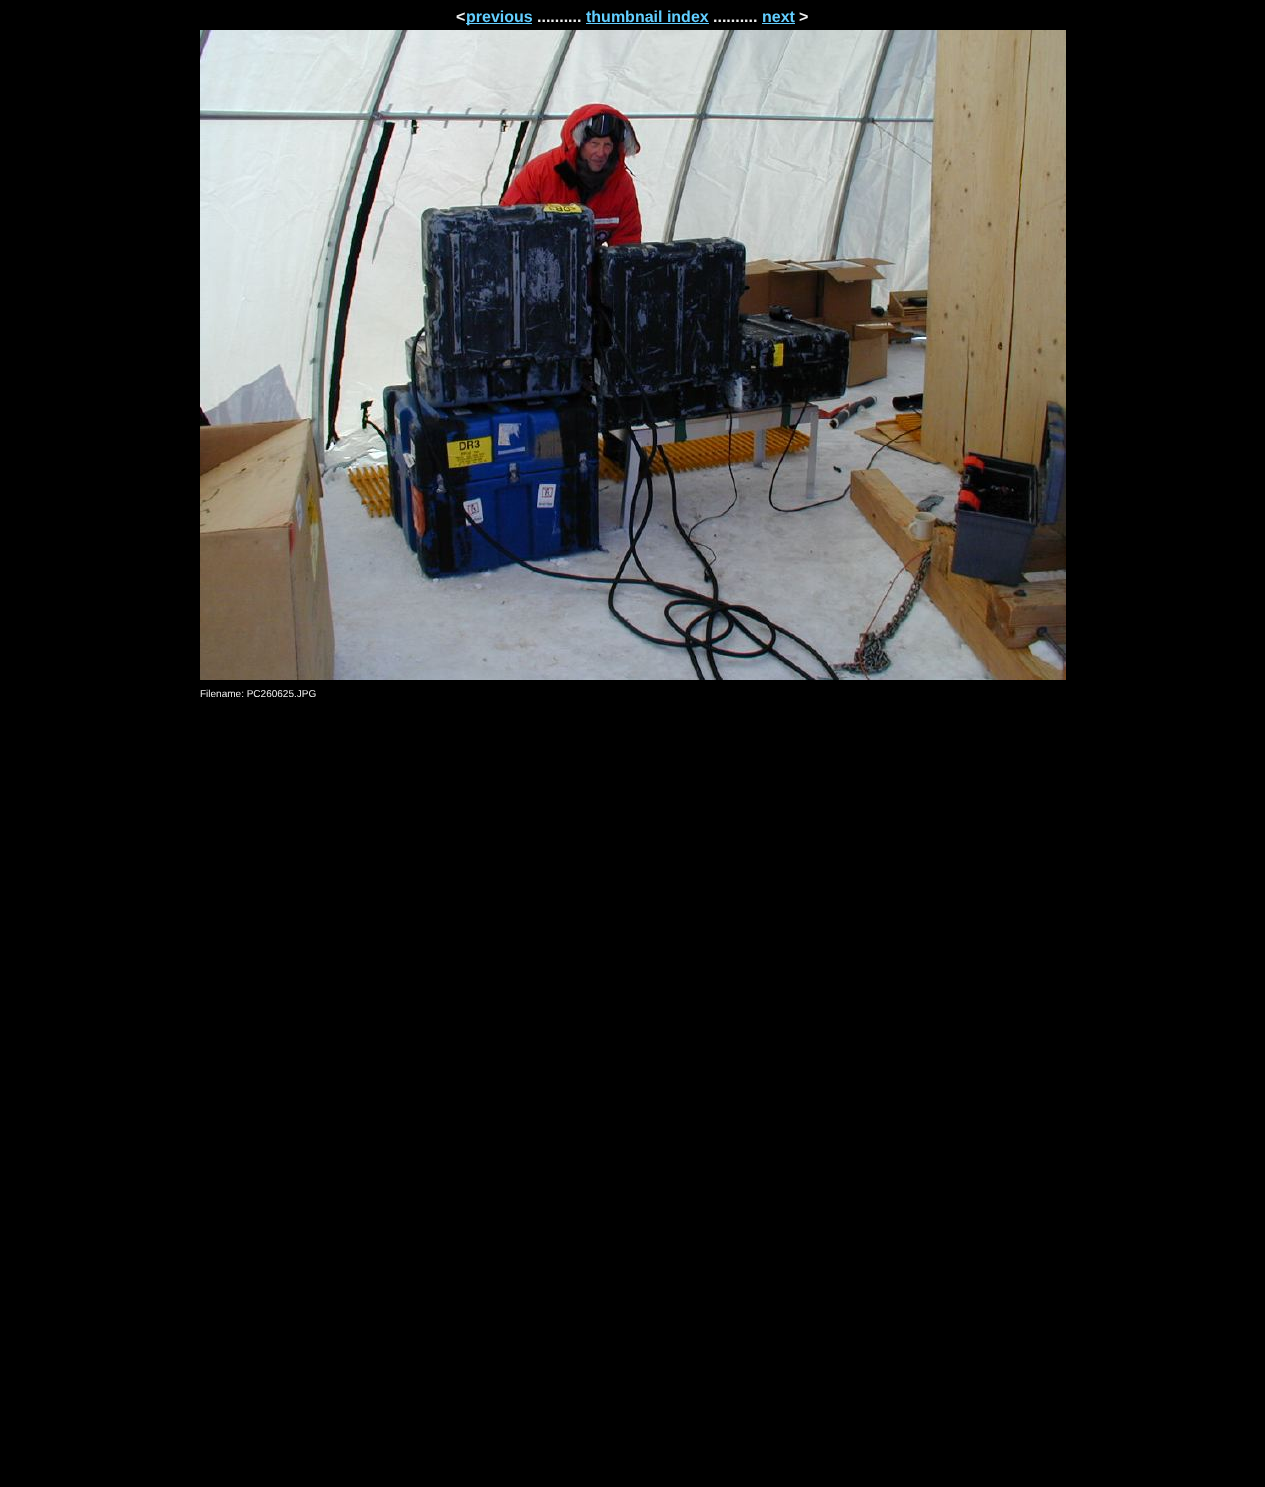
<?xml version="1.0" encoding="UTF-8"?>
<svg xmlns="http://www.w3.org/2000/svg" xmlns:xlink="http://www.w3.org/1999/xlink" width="1265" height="1487">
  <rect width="100%" height="100%" fill="#000000" />
  <rect x="466" y="23" width="66" height="1" fill="#63ceff" />
  <rect x="586" y="23" width="123" height="1" fill="#63ceff" />
  <rect x="762" y="23" width="33" height="1" fill="#63ceff" />
  <image x="200" y="30" width="866" height="650" xlink:href="image1.png" />
  <text x="456" y="22" style="font-family: Liberation Sans; font-size: 16px; font-weight: bold; fill: #efefef">&lt;</text>
  <text x="466" y="22" style="font-family: Liberation Sans; font-size: 16px; font-weight: bold; fill: #63ceff">previous</text>
  <text x="537" y="22" style="font-family: Liberation Sans; font-size: 16px; font-weight: bold; fill: #efefef">..........</text>
  <text x="586" y="22" style="font-family: Liberation Sans; font-size: 16px; font-weight: bold; fill: #63ceff">thumbnail index</text>
  <text x="713" y="22" style="font-family: Liberation Sans; font-size: 16px; font-weight: bold; fill: #efefef">..........</text>
  <text x="762" y="22" style="font-family: Liberation Sans; font-size: 16px; font-weight: bold; fill: #63ceff">next</text>
  <text x="799" y="22" style="font-family: Liberation Sans; font-size: 16px; font-weight: bold; fill: #efefef">&gt;</text>
  <text x="200" y="697" style="font-family: Liberation Sans; font-size: 10px; fill: #efefef">Filename: PC260625.JPG</text>
</svg>
